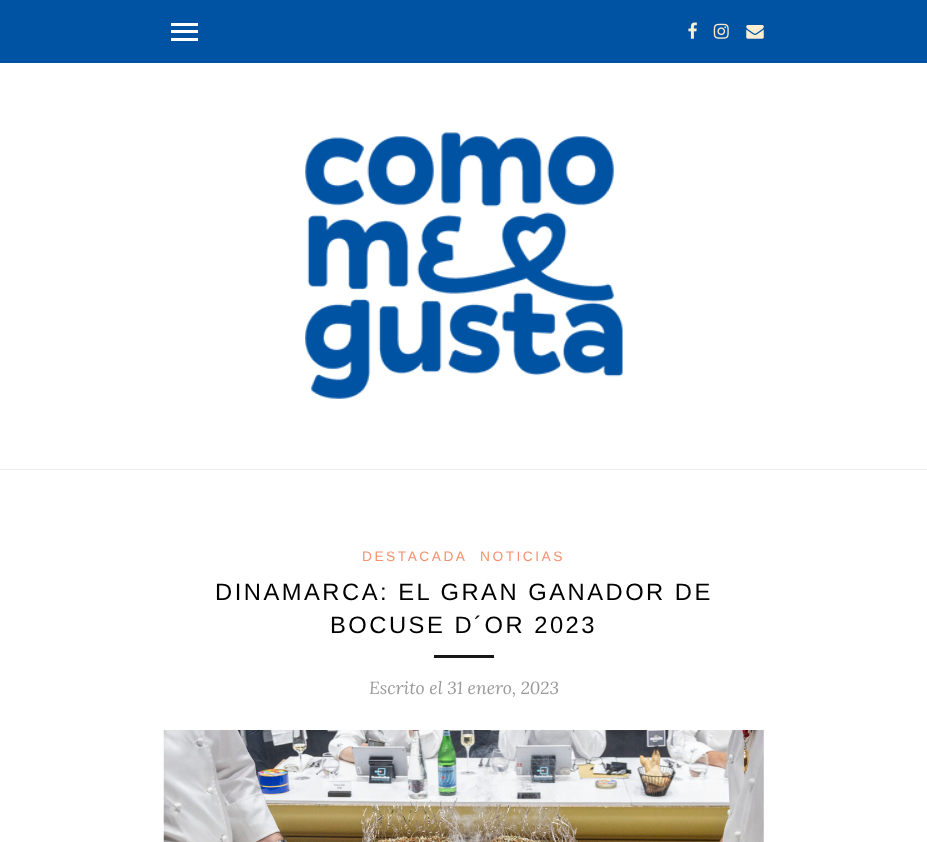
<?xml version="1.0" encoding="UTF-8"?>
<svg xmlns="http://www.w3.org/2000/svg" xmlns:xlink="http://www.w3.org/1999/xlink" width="927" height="842">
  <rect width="100%" height="100%" fill="#ffffff" />
  <rect width="927" height="63" fill="#0053a3" />
  <rect x="171" y="23" width="27" height="3" fill="#ffffff" />
  <rect x="171" y="30" width="27" height="3" fill="#ffffff" />
  <rect x="171" y="38" width="27" height="3" fill="#ffffff" />
  <image x="688" y="22" width="9" height="17" xlink:href="image1.png" />
  <image x="713" y="23" width="16" height="16" xlink:href="image2.png" />
  <image x="746" y="25" width="18" height="14" xlink:href="image3.png" />
  <rect y="469" width="927" height="1" fill="#eeeeee" />
  <image x="305" y="132" width="318" height="267" xlink:href="image4.png" />
  <rect x="434" y="655" width="60" height="3" fill="#161616" />
  <image x="163" y="730" width="601" height="112" xlink:href="image5.png" />
  <text x="362" y="561" style="font-family: Liberation Sans; font-size: 13.75px; letter-spacing: 2.5px; fill: #f5926f">DESTACADA</text>
  <text x="480" y="561" style="font-family: Liberation Sans; font-size: 13.75px; letter-spacing: 2.5px; fill: #f5926f">NOTICIAS</text>
  <text x="215" y="600" style="font-family: Liberation Sans; font-size: 23.75px; letter-spacing: 2.5px; fill: #000000">DINAMARCA: EL GRAN GANADOR DE</text>
  <text x="330" y="633" style="font-family: Liberation Sans; font-size: 23.75px; letter-spacing: 2.5px; fill: #000000">BOCUSE D´OR 2023</text>
  <text x="369" y="694" style="font-family: Lora; font-size: 17.5px; font-style: italic; fill: #999999">Escrito el 31 enero, 2023</text>
</svg>
